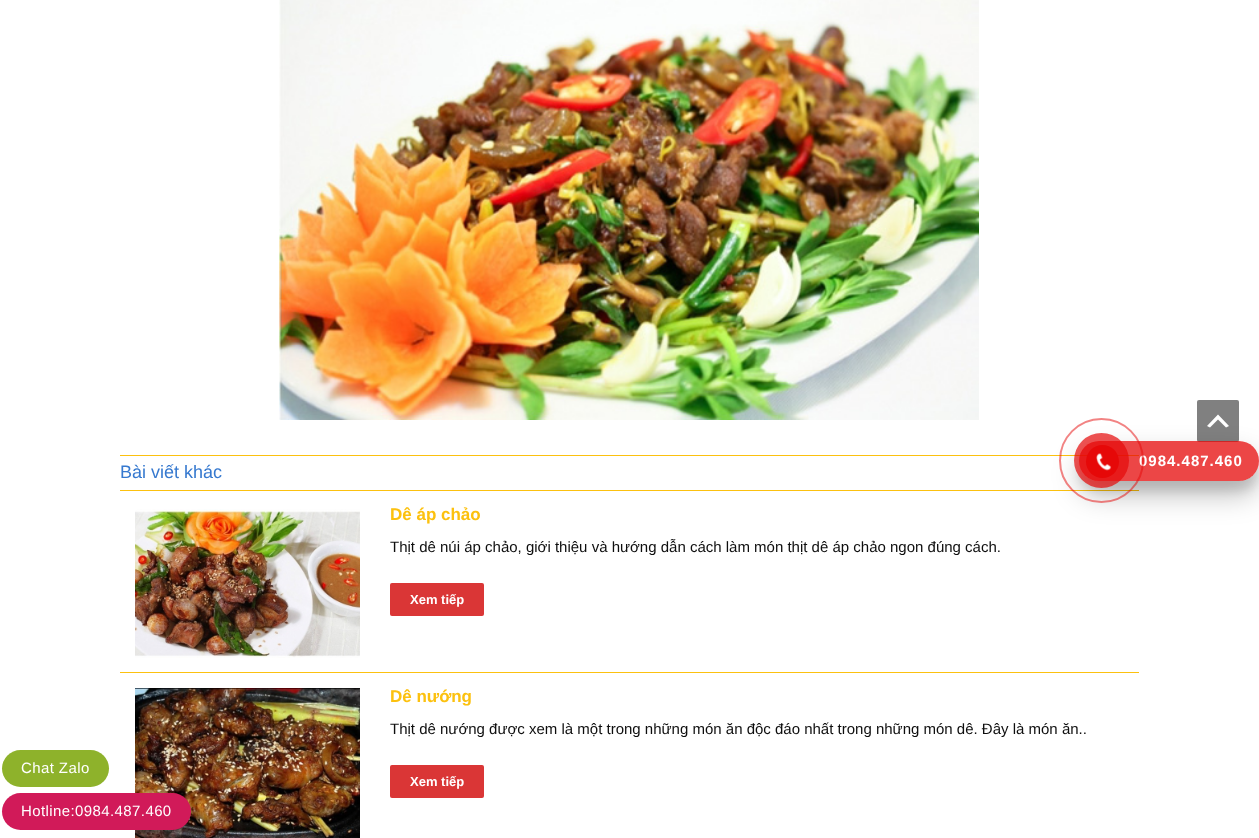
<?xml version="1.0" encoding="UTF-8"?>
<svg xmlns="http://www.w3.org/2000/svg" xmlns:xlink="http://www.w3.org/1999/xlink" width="1259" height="838">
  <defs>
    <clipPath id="clip1"><path d="M 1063 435 h 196 v 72 h -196 z m 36 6 h 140 c 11 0 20 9 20 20 c 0 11 -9 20 -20 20 h -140 c -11 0 -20 -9 -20 -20 c 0 -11 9 -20 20 -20 z" clip-rule="evenodd" /></clipPath>
    <clipPath id="clip2"><path d="M 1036 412 h 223 v 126 h -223 z m 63 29 h 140 c 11 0 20 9 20 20 c 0 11 -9 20 -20 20 h -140 c -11 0 -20 -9 -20 -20 c 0 -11 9 -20 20 -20 z" clip-rule="evenodd" /></clipPath>
  </defs>
  <rect width="100%" height="100%" fill="#ffffff" />
  <rect x="1197" y="400" width="42" height="42" rx="2" fill="#808080" />
  <path d="M 1226 427.5 l -8 -8 l -8 8 l -3 -1.5 l 11 -11.5 l 11 11.5 z" fill="#ffffff" />
  <rect x="120" y="455" width="1019" height="1" fill="#fcc10f" />
  <rect x="120" y="490" width="1019" height="1" fill="#fcc10f" />
  <g clip-path="url(#clip1)">
    <rect x="1079" y="451" width="180" height="40" rx="20" fill="#000000" fill-opacity="0.1" filter="blur(5px)" />
  </g>
  <g clip-path="url(#clip2)">
    <rect x="1079" y="455" width="180" height="40" rx="20" fill="#000000" fill-opacity="0.25" filter="blur(14px)" />
  </g>
  <rect x="1079" y="441" width="180" height="40" rx="20" fill="#e60808" fill-opacity="0.75" />
  <rect x="2" y="750" width="107" height="37" rx="18.5" fill="#8eb22b" />
  <image x="135" y="688" width="225" height="150" xlink:href="image4.png" />
  <rect x="2" y="793" width="189" height="37" rx="18.5" fill="#d11a59" />
  <image x="279" y="0" width="700" height="420" xlink:href="image2.png" />
  <rect x="120" y="672" width="1019" height="1" fill="#fcc10f" />
  <image x="135" y="509" width="225" height="149" xlink:href="image3.png" />
  <rect x="390" y="583" width="94" height="33" rx="2" fill="#da3636" />
  <rect x="390" y="765" width="94" height="33" rx="2" fill="#da3636" />
  <text x="1139" y="466" style="font-family: Liberation Sans; font-size: 15px; font-weight: bold; letter-spacing: 1px; fill: #ffffff">0984.487.460</text>
  <circle cx="1101.5" cy="460.5" r="41.5" fill="none" stroke="#e60808" stroke-opacity="0.5" stroke-width="2" />
  <circle cx="1101.5" cy="460.5" r="27.5" fill="#e60808" fill-opacity="0.7" />
  <circle cx="1102.5" cy="461.5" r="16.5" fill="#e60808" />
  <image x="1096" y="453" width="16" height="18" xlink:href="image1.png" />
  <text x="21" y="773" style="font-family: Liberation Sans; font-size: 15px; letter-spacing: 0.4px; fill: #ffffff">Chat Zalo</text>
  <text x="21" y="816" style="font-family: Liberation Sans; font-size: 15px; letter-spacing: 0.4px; fill: #ffffff">Hotline:0984.487.460</text>
  <text x="120" y="478" style="font-family: Liberation Sans; font-size: 18px; fill: #3679cf">Bài viết khác</text>
  <text x="390" y="520" style="font-family: Liberation Sans; font-size: 17px; font-weight: bold; fill: #fcc10f">Dê áp chảo</text>
  <text x="390" y="552" style="font-family: Liberation Sans; font-size: 15px; fill: #0e0e0e">Thịt dê núi áp chảo, giới thiệu và hướng dẫn cách làm món thịt dê áp chảo ngon đúng cách.</text>
  <text x="410" y="604" style="font-family: Liberation Sans; font-size: 13px; font-weight: bold; fill: #ffffff">Xem tiếp</text>
  <text x="390" y="702" style="font-family: Liberation Sans; font-size: 17px; font-weight: bold; fill: #fcc10f">Dê nướng</text>
  <text x="390" y="734" style="font-family: Liberation Sans; font-size: 15px; fill: #0e0e0e">Thịt dê nướng được xem là một trong những món ăn độc đáo nhất trong những món dê. Đây là món ăn..</text>
  <text x="410" y="786" style="font-family: Liberation Sans; font-size: 13px; font-weight: bold; fill: #ffffff">Xem tiếp</text>
</svg>
